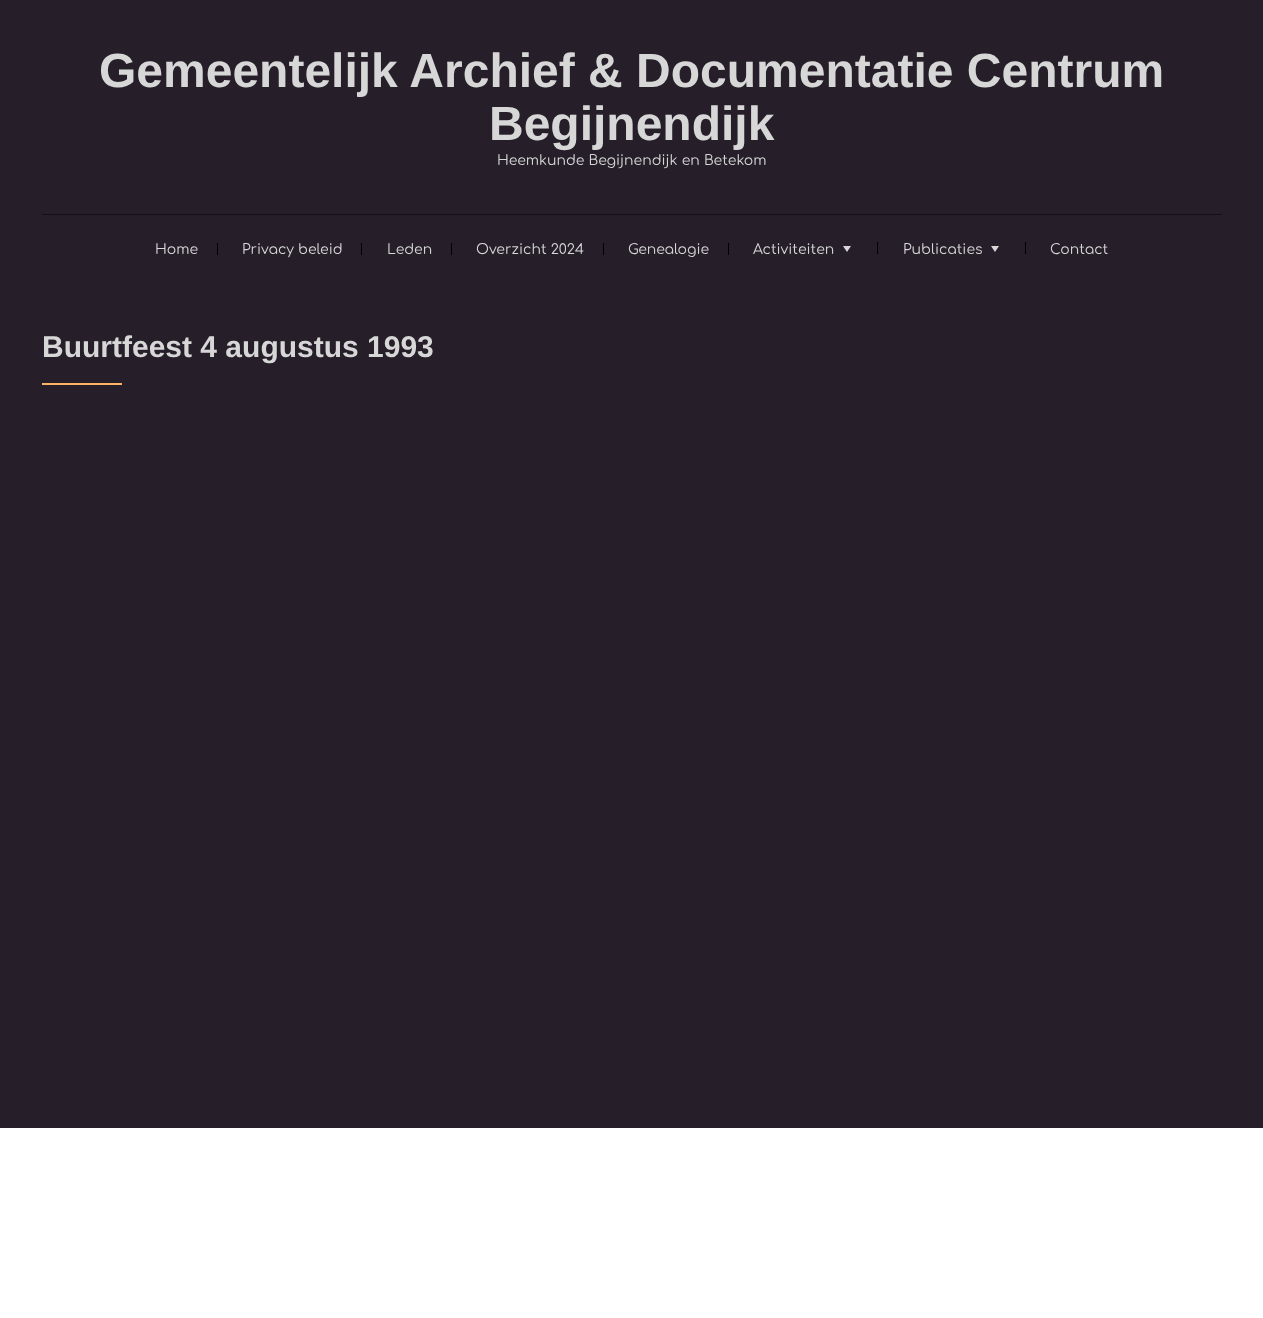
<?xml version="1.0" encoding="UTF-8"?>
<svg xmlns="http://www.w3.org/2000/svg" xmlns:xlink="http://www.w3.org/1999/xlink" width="1263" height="1318">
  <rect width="100%" height="100%" fill="#ffffff" />
  <rect width="1263" height="1128" fill="#261f2a" />
  <rect x="42" y="214" width="1180" height="1" fill="#141016" />
  <rect x="217" y="243" width="1" height="12" fill="#000000" />
  <rect x="361" y="243" width="1" height="12" fill="#000000" />
  <rect x="451" y="243" width="1" height="12" fill="#000000" />
  <rect x="603" y="243" width="1" height="12" fill="#000000" />
  <rect x="728" y="243" width="1" height="12" fill="#000000" />
  <path d="M 851 246 l -4 6 l -4 -6 z" fill="#d7d7d7" />
  <rect x="877" y="242" width="1" height="12" fill="#000000" />
  <path d="M 999 246 l -4 6 l -4 -6 z" fill="#d7d7d7" />
  <rect x="1025" y="242" width="1" height="12" fill="#000000" />
  <rect x="42" y="383" width="80" height="2" fill="#ffb366" />
  <text x="99" y="87" style="font-family: Liberation Sans; font-size: 48px; font-weight: bold; fill: #d7d7d7">Gemeentelijk Archief &amp; Documentatie Centrum</text>
  <text x="489" y="140" style="font-family: Liberation Sans; font-size: 48px; font-weight: bold; fill: #d7d7d7">Begijnendijk</text>
  <text x="497" y="165" style="font-family: Comfortaa; font-size: 14px; fill: #d7d7d7">Heemkunde Begijnendijk en Betekom</text>
  <text x="155" y="254" style="font-family: Comfortaa; font-size: 14px; fill: #d7d7d7">Home</text>
  <text x="242" y="254" style="font-family: Comfortaa; font-size: 14px; fill: #d7d7d7">Privacy beleid</text>
  <text x="387" y="254" style="font-family: Comfortaa; font-size: 14px; fill: #d7d7d7">Leden</text>
  <text x="476" y="254" style="font-family: Comfortaa; font-size: 14px; fill: #d7d7d7">Overzicht 2024</text>
  <text x="628" y="254" style="font-family: Comfortaa; font-size: 14px; fill: #d7d7d7">Genealogie</text>
  <text x="753" y="254" style="font-family: Comfortaa; font-size: 14px; fill: #d7d7d7">Activiteiten</text>
  <text x="903" y="254" style="font-family: Comfortaa; font-size: 14px; fill: #d7d7d7">Publicaties</text>
  <text x="1050" y="254" style="font-family: Comfortaa; font-size: 14px; fill: #d7d7d7">Contact</text>
  <text x="42" y="357" style="font-family: Liberation Sans; font-size: 30px; font-weight: bold; fill: #d7d7d7">Buurtfeest 4 augustus 1993</text>
</svg>
